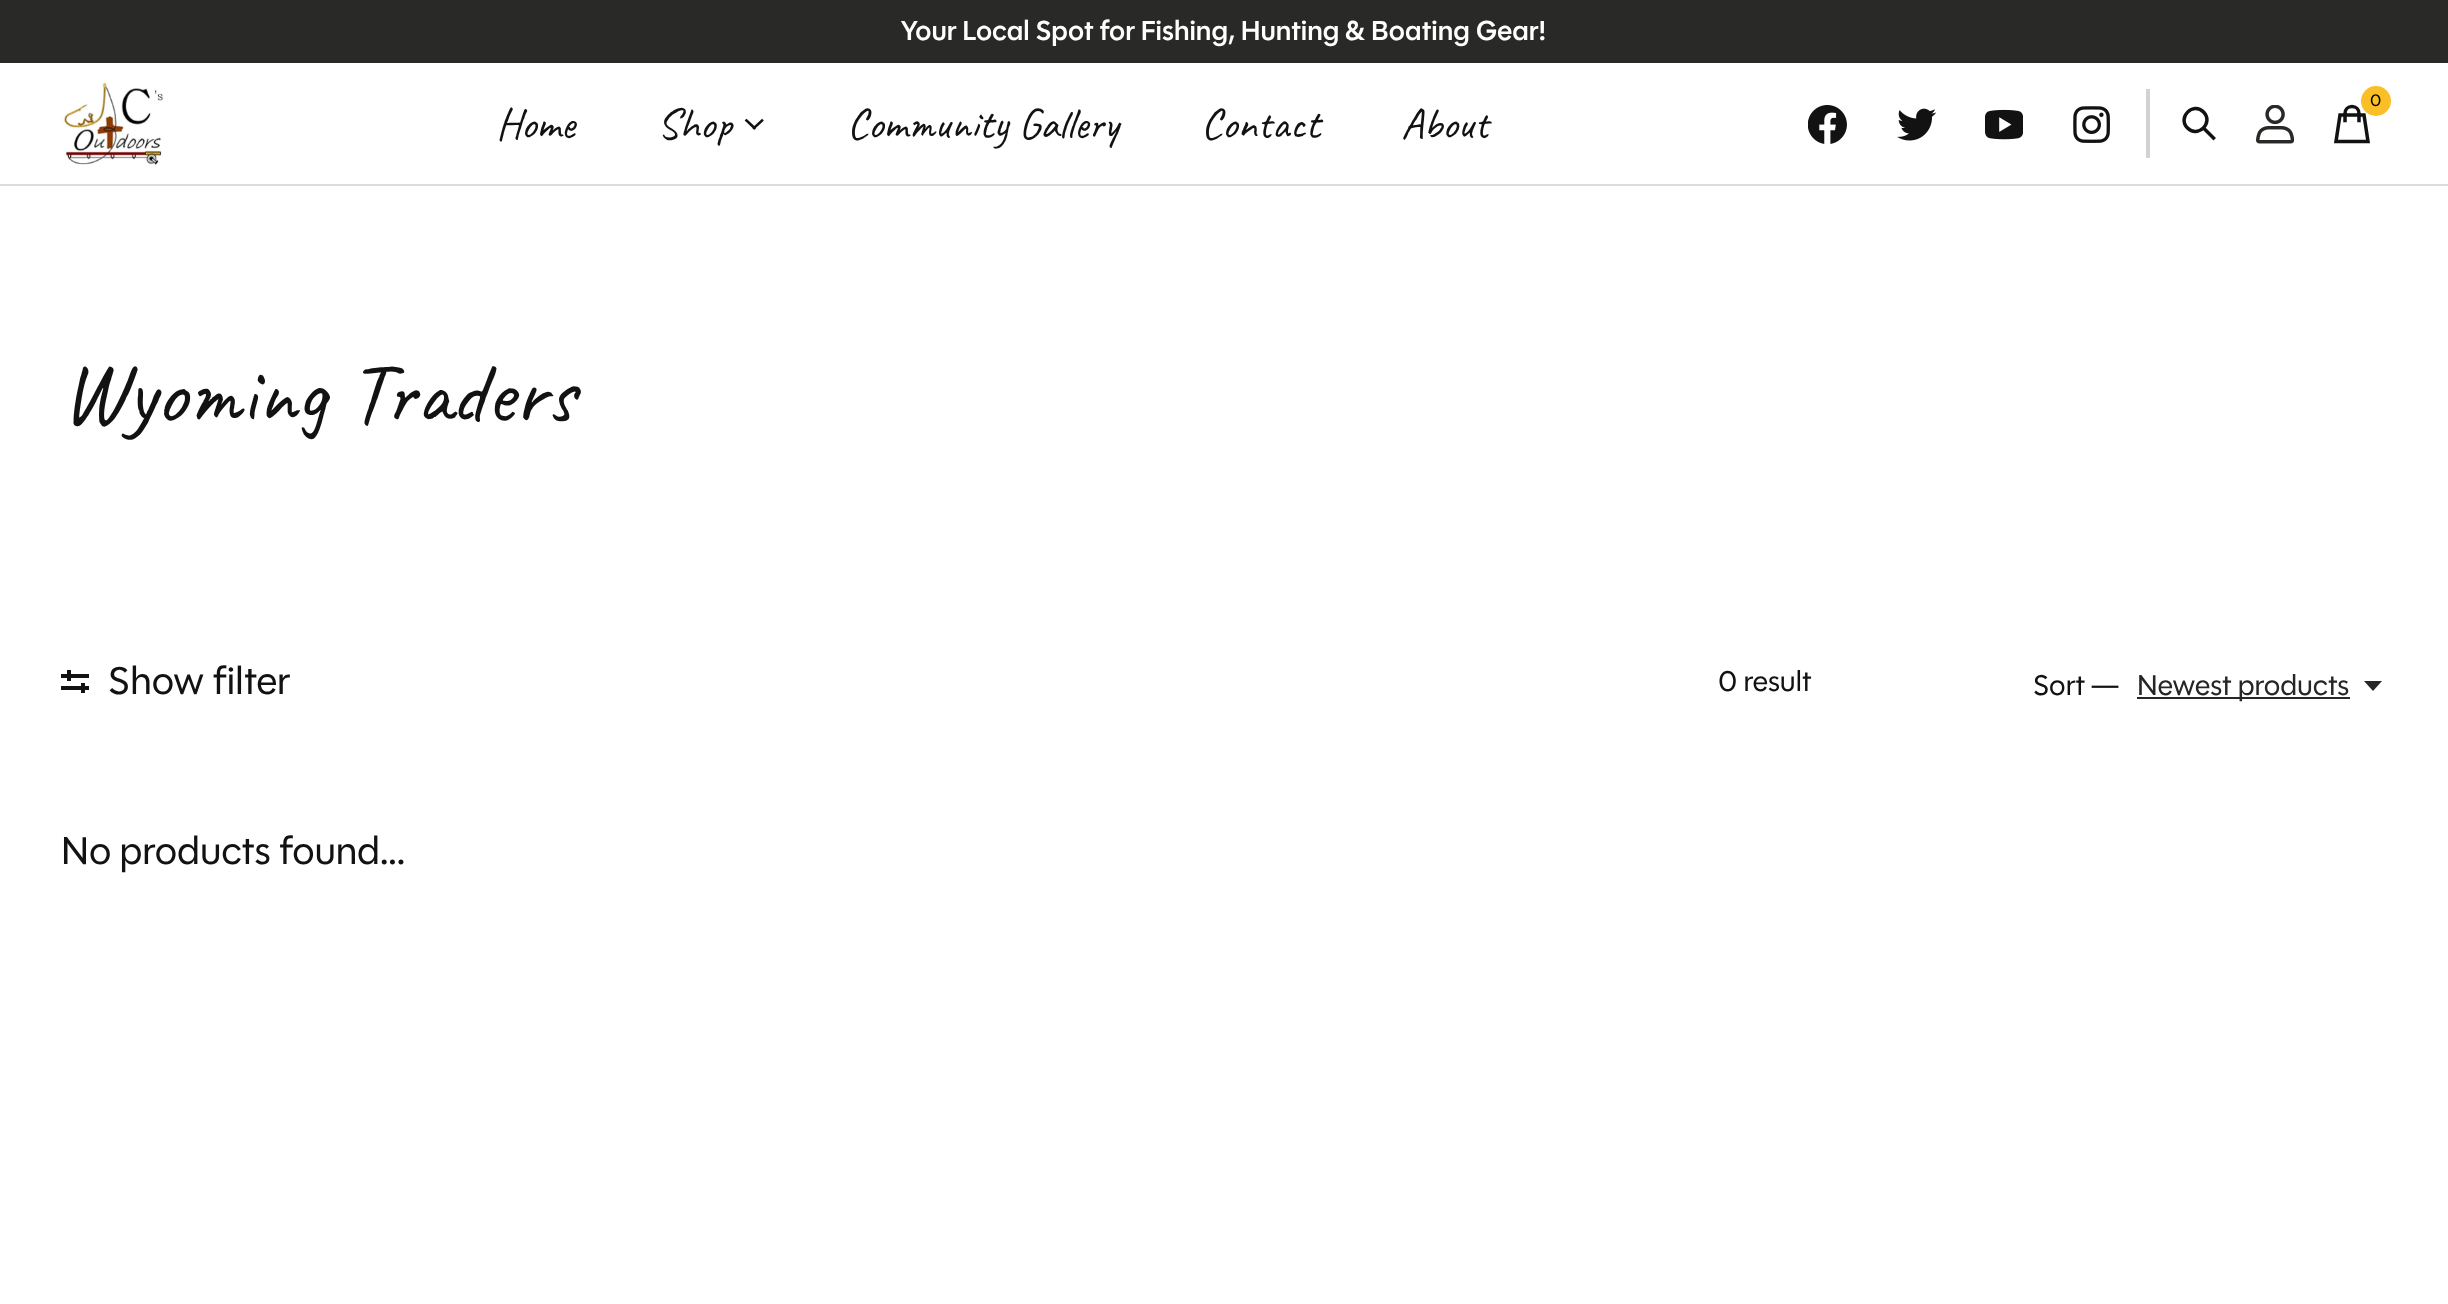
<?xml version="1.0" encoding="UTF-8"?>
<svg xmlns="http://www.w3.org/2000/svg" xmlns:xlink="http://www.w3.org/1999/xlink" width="2448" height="1304">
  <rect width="100%" height="100%" fill="#ffffff" />
  <rect width="2448" height="63" fill="#292928" />
  <rect y="184" width="2448" height="2" fill="#dbdbdb" />
  <image x="61" y="82" width="103" height="84" xlink:href="image1.png" />
  <rect x="2146" y="89" width="4" height="69" fill="#d2d2d2" />
  <path d="M 2368 141.5 h -32 l 4 -26.5 h 24 z m -23 -21 v -7 c 0 -4 3 -7 7 -7 c 4 0 7 3 7 7 v 7" fill="none" stroke="#121212" stroke-width="3.5" stroke-linecap="square" />
  <circle cx="2376" cy="101" r="15" fill="#fabf26" />
  <path d="M 2203.5 128 l 10 10 m -10 -26 c 10.5 10.5 -5.5 26.5 -16 16 c -10.5 -10.5 5.5 -26.5 16 -16" fill="none" stroke="#121212" stroke-width="3.5" stroke-linecap="square" />
  <image x="2256" y="105" width="38" height="39" xlink:href="image2.png" />
  <image x="1808" y="105" width="39" height="39" xlink:href="image3.png" />
  <image x="1897" y="108" width="39" height="33" xlink:href="image4.png" />
  <image x="1985" y="109" width="38" height="31" xlink:href="image5.png" />
  <image x="2073" y="106" width="37" height="37" xlink:href="image6.png" />
  <path d="M 746.5 120.5 l 8 7.5 m 7.5 -7.5 l -8 7.5" fill="none" stroke="#121212" stroke-width="2.6" stroke-linecap="square" />
  <rect x="61" y="686" width="28" height="4" fill="#121212" />
  <rect x="81" y="683" width="4" height="10" fill="#121212" />
  <rect x="61" y="674" width="28" height="4" fill="#121212" />
  <rect x="67" y="670" width="4" height="11" fill="#121212" />
  <rect x="2137" y="697" width="213" height="2" fill="#262626" />
  <path d="M 2364 681 l 9 10 l 9 -10 z" fill="#262626" />
  <text x="901" y="40" style="font-family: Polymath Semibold; font-size: 28px; font-weight: 600; fill: #ffffff">Your Local Spot for Fishing, Hunting &amp; Boating Gear!</text>
  <text x="2370" y="106" style="font-family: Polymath; font-size: 17px; fill: #000000">0</text>
  <text x="496" y="138" style="font-family: Caveat; font-size: 43.75px; fill: #121212">Home</text>
  <text x="657" y="138" style="font-family: Caveat; font-size: 43.75px; fill: #121212">Shop</text>
  <text x="847" y="138" style="font-family: Caveat; font-size: 43.75px; fill: #121212">Community Gallery</text>
  <text x="1201" y="138" style="font-family: Caveat; font-size: 43.75px; fill: #121212">Contact</text>
  <text x="1401" y="138" style="font-family: Caveat; font-size: 43.75px; fill: #121212">About</text>
  <text x="61" y="422" style="font-family: Caveat; font-size: 87.5px; fill: #121212">Wyoming Traders</text>
  <text x="108" y="694" style="font-family: Polymath; font-size: 39.25px; fill: #121212">Show filter</text>
  <text x="1718" y="691" style="font-family: Polymath; font-size: 29px; fill: #121212">0 result</text>
  <text x="2033" y="695" style="font-family: Polymath; font-size: 29px; fill: #121212">Sort —</text>
  <text x="2137" y="695" style="font-family: Polymath; font-size: 29px; fill: #262626">Newest products</text>
  <text x="61" y="864" style="font-family: Polymath; font-size: 39.25px; fill: #121212">No products found...</text>
</svg>
